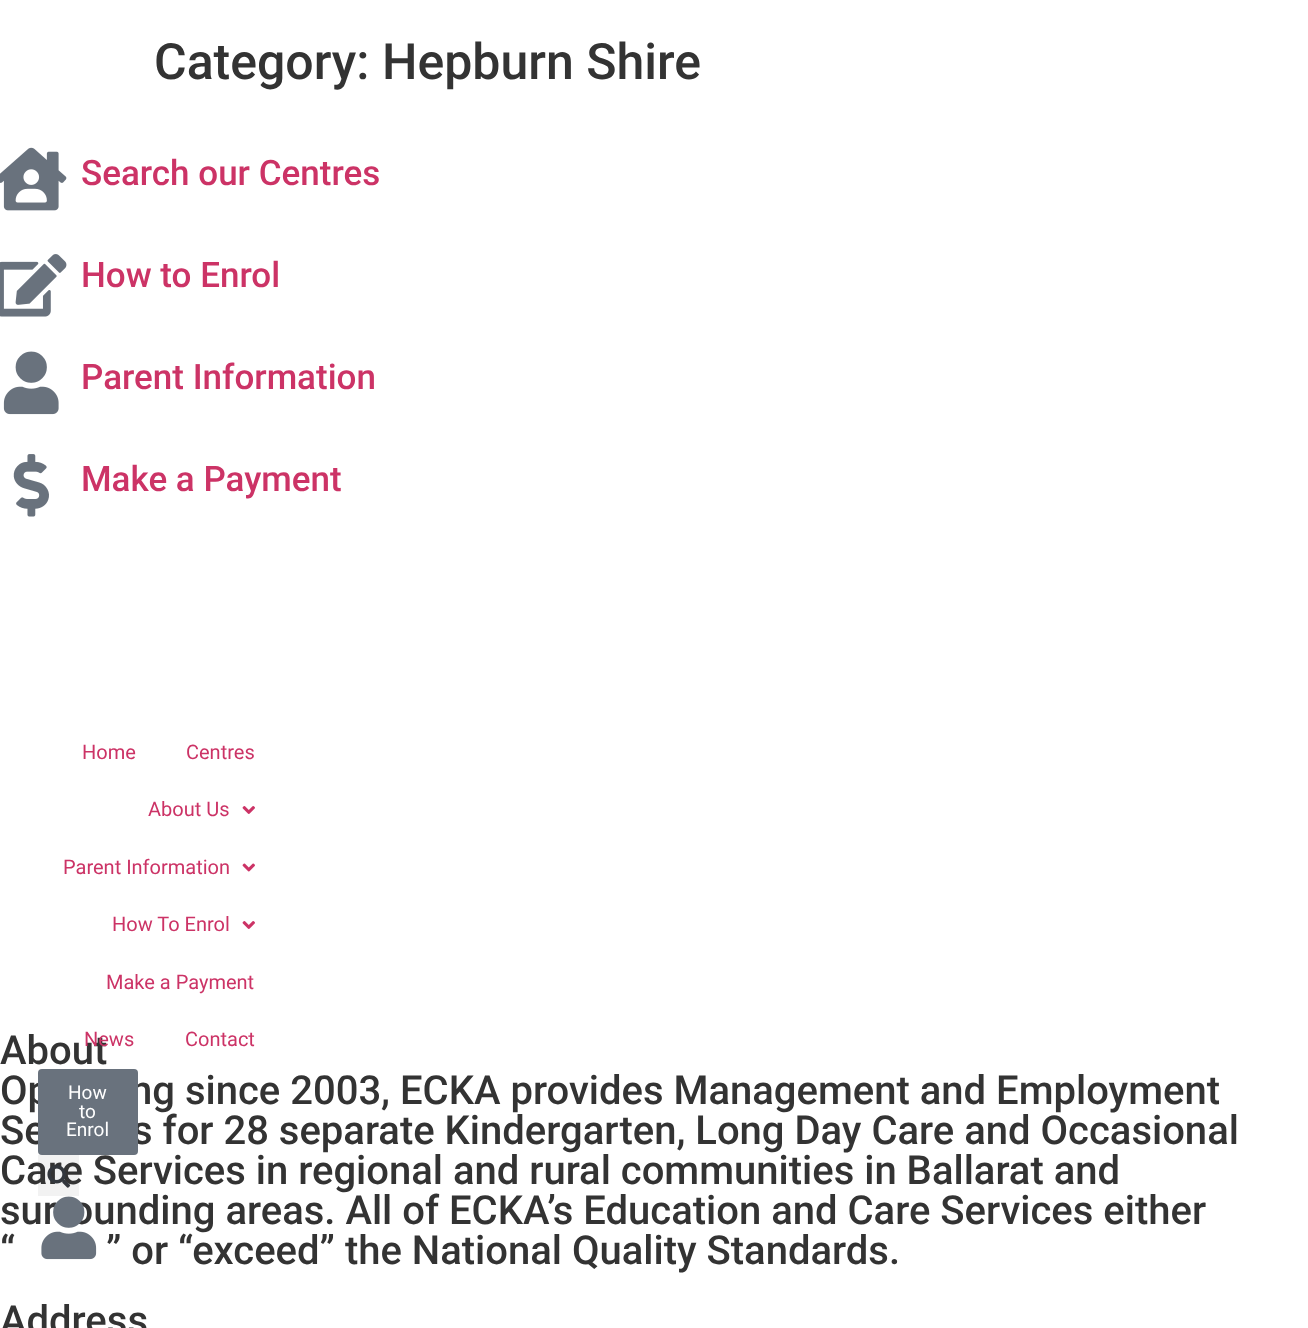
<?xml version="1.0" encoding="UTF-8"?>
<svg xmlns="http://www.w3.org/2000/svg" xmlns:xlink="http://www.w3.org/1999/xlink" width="1308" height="1328">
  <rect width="100%" height="100%" fill="#ffffff" />
  <image x="0" y="147" width="67" height="64" xlink:href="image1.png" />
  <image x="0" y="254" width="67" height="63" xlink:href="image2.png" />
  <image x="3" y="351" width="56" height="64" xlink:href="image3.png" />
  <image x="13" y="454" width="36" height="63" xlink:href="image4.png" />
  <image x="242" y="806" width="13" height="8" xlink:href="image5.png" />
  <image x="242" y="863" width="13" height="9" xlink:href="image6.png" />
  <image x="242" y="921" width="13" height="8" xlink:href="image5.png" />
  <rect x="38" y="1155" width="41" height="41" fill="#000000" fill-opacity="0.05" />
  <text x="154" y="79" style="font-family: Roboto; font-size: 50px; font-weight: 500; fill: #333333">Category: Hepburn Shire</text>
  <text x="81" y="185" style="font-family: Roboto; font-size: 35px; font-weight: 500; fill: #cc3366">Search our Centres</text>
  <text x="81" y="287" style="font-family: Roboto; font-size: 35px; font-weight: 500; fill: #cc3366">How to Enrol</text>
  <text x="81" y="389" style="font-family: Roboto; font-size: 35px; font-weight: 500; fill: #cc3366">Parent Information</text>
  <text x="81" y="491" style="font-family: Roboto; font-size: 35px; font-weight: 500; fill: #cc3366">Make a Payment</text>
  <text x="0" y="1064" style="font-family: Roboto; font-size: 40px; font-weight: 500; fill: #333333">About</text>
  <text x="0" y="1104" style="font-family: Roboto; font-size: 40px; font-weight: 500; fill: #333333">Op</text>
  <text x="130" y="1104" style="font-family: Roboto; font-size: 40px; font-weight: 500; fill: #333333">ng since 2003, ECKA provides Management and Employment</text>
  <text x="0" y="1144" style="font-family: Roboto; font-size: 40px; font-weight: 500; fill: #333333">Se</text>
  <text x="132" y="1144" style="font-family: Roboto; font-size: 40px; font-weight: 500; fill: #333333">s for 28 separate Kindergarten, Long Day Care and Occasional</text>
  <text x="0" y="1184" style="font-family: Roboto; font-size: 40px; font-weight: 500; fill: #333333">Care Services in regional and rural communities in Ballarat and</text>
  <text x="0" y="1224" style="font-family: Roboto; font-size: 40px; font-weight: 500; fill: #333333">surrounding areas. All of ECKA’s Education and Care Services either</text>
  <text x="0" y="1264" style="font-family: Roboto; font-size: 40px; font-weight: 500; fill: #333333">“</text>
  <text x="106" y="1264" style="font-family: Roboto; font-size: 40px; font-weight: 500; fill: #333333">” or “exceed” the National Quality Standards.</text>
  <text x="0" y="1334" style="font-family: Roboto; font-size: 40px; font-weight: 500; fill: #333333">Address</text>
  <text x="82" y="759" style="font-family: Roboto; font-size: 20px; fill: #cc3366">Home</text>
  <text x="186" y="759" style="font-family: Roboto; font-size: 20px; fill: #cc3366">Centres</text>
  <text x="148" y="816" style="font-family: Roboto; font-size: 20px; fill: #cc3366">About Us</text>
  <text x="63" y="874" style="font-family: Roboto; font-size: 20px; fill: #cc3366">Parent Information</text>
  <text x="112" y="931" style="font-family: Roboto; font-size: 20px; fill: #cc3366">How To Enrol</text>
  <text x="106" y="989" style="font-family: Roboto; font-size: 20px; fill: #cc3366">Make a Payment</text>
  <text x="84" y="1046" style="font-family: Roboto; font-size: 20px; fill: #cc3366">News</text>
  <text x="185" y="1046" style="font-family: Roboto; font-size: 20px; fill: #cc3366">Contact</text>
  <rect x="38" y="1069" width="100" height="86" rx="4" fill="#69727d" />
  <text x="68" y="1099" style="font-family: Roboto; font-size: 19px; fill: #ffffff">How</text>
  <text x="79" y="1118" style="font-family: Roboto; font-size: 19px; fill: #ffffff">to</text>
  <text x="66" y="1136" style="font-family: Roboto; font-size: 19px; fill: #ffffff">Enrol</text>
  <image x="47" y="1165" width="24" height="23" xlink:href="image7.png" />
  <image x="41" y="1196" width="56" height="64" xlink:href="image8.png" />
</svg>
